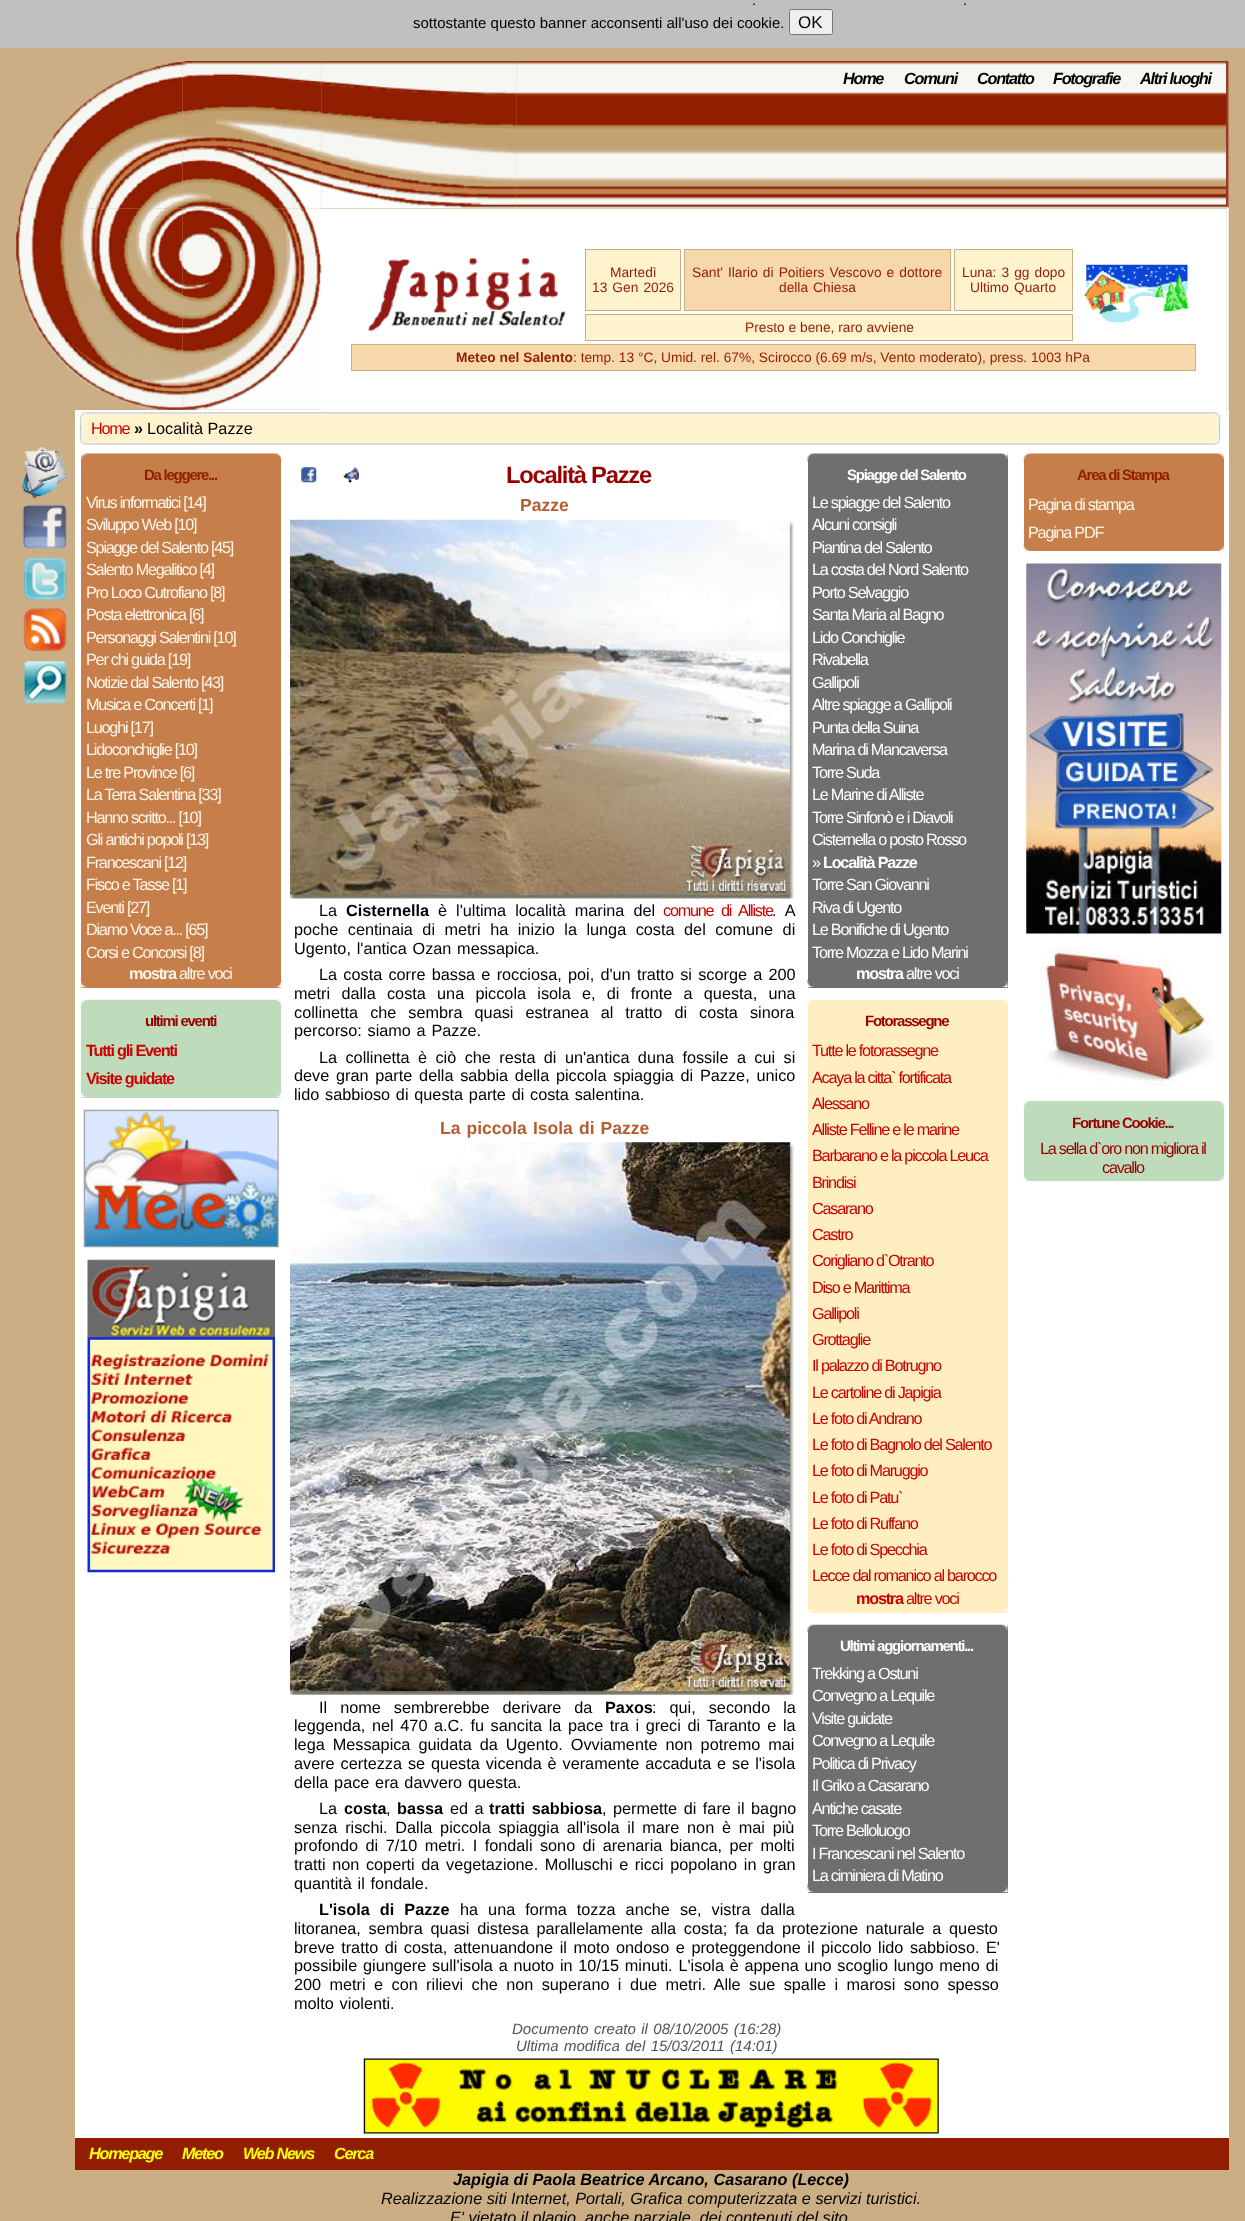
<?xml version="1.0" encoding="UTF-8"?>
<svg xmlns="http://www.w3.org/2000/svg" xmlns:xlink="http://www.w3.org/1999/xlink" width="1245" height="2221">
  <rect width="100%" height="100%" fill="#cbae84" />
  <rect width="1245" height="48" fill="#c0c0c0" />
  <rect x="789.5" y="9.5" width="43" height="25" rx="2" fill="#efefef" stroke="#767676" />
  <image x="75" y="61" width="108" height="148" xlink:href="image1.png" />
  <image x="321" y="61" width="196" height="148" xlink:href="image3.png" />
  <image x="182" y="61" width="140" height="148" xlink:href="image2.png" />
  <image x="516" y="61" width="711" height="34" xlink:href="image4.png" />
  <image x="516" y="94" width="711" height="115" xlink:href="image7.png" />
  <image x="1226" y="61" width="3" height="349" xlink:href="image5.png" />
  <image x="16" y="111" width="59" height="263" xlink:href="image6.png" />
  <image x="75" y="208" width="108" height="202" xlink:href="image8.png" />
  <rect x="321" y="209" width="905" height="201" fill="#ffffff" />
  <image x="182" y="208" width="140" height="202" xlink:href="image9.png" />
  <image x="368" y="258" width="198" height="74" xlink:href="image10.png" />
  <rect x="585.5" y="249.5" width="95" height="61" fill="#fff3cd" stroke="#cbae84" />
  <rect x="684.5" y="249.5" width="266" height="61" fill="#f7d8aa" stroke="#cbae84" />
  <rect x="954.5" y="249.5" width="118" height="61" fill="#fff3cd" stroke="#cbae84" />
  <image x="1083" y="264" width="106" height="59" xlink:href="image11.png" />
  <rect x="585.5" y="314.5" width="487" height="26" fill="#fff3cd" stroke="#cbae84" />
  <rect x="351.5" y="344.5" width="844" height="26" fill="#f7d8aa" stroke="#cbae84" />
  <rect x="75" y="410" width="1154" height="1728" fill="#ffffff" />
  <image x="79" y="412" width="7" height="33" xlink:href="image12.png" />
  <image x="86" y="412" width="1128" height="33" xlink:href="image13.png" />
  <image x="1214" y="412" width="7" height="33" xlink:href="image14.png" />
  <image x="22" y="447" width="46" height="52" xlink:href="image15.png" />
  <image x="22" y="504" width="45" height="45" xlink:href="image16.png" />
  <image x="23" y="557" width="44" height="43" xlink:href="image17.png" />
  <image x="23" y="608" width="44" height="44" xlink:href="image18.png" />
  <image x="22" y="660" width="45" height="44" xlink:href="image19.png" />
  <rect x="81" y="454" width="200" height="534" fill="#c67e4a" />
  <image x="81" y="979" width="201" height="9" xlink:href="image20.png" />
  <image x="81" y="453" width="201" height="8" xlink:href="image21.png" />
  <rect x="81" y="1000" width="200" height="98" fill="#bedcbb" />
  <image x="81" y="1089" width="201" height="9" xlink:href="image22.png" />
  <image x="81" y="999" width="201" height="9" xlink:href="image23.png" />
  <image x="83" y="1109" width="196" height="139" xlink:href="image24.png" />
  <image x="87" y="1259" width="188" height="314" xlink:href="image25.png" />
  <image x="301" y="467" width="16" height="16" xlink:href="image26.png" />
  <image x="343" y="467" width="16" height="16" xlink:href="image27.png" />
  <image x="290" y="519" width="504" height="380" xlink:href="image28.png" />
  <image x="290" y="1142" width="504" height="553" xlink:href="image29.png" />
  <rect x="808" y="454" width="200" height="534" fill="#6f6f6f" />
  <image x="807" y="979" width="201" height="9" xlink:href="image30.png" />
  <image x="807" y="453" width="201" height="8" xlink:href="image31.png" />
  <rect x="808" y="1000" width="200" height="613" fill="#ffeebf" />
  <image x="807" y="1604" width="201" height="9" xlink:href="image32.png" />
  <image x="807" y="999" width="201" height="9" xlink:href="image33.png" />
  <rect x="808" y="1625" width="200" height="268" fill="#6f6f6f" />
  <image x="807" y="1884" width="201" height="9" xlink:href="image30.png" />
  <image x="807" y="1624" width="201" height="9" xlink:href="image34.png" />
  <rect x="1024" y="454" width="200" height="97" fill="#c67e4a" />
  <image x="1023" y="543" width="201" height="8" xlink:href="image35.png" />
  <image x="1023" y="453" width="201" height="8" xlink:href="image36.png" />
  <image x="1026" y="563" width="196" height="371" xlink:href="image37.png" />
  <image x="1040" y="946" width="174" height="140" xlink:href="image38.png" />
  <rect x="1024" y="1101" width="200" height="80" fill="#bedcbb" />
  <image x="1023" y="1173" width="201" height="8" xlink:href="image39.png" />
  <image x="1023" y="1101" width="201" height="8" xlink:href="image40.png" />
  <image x="363" y="2058" width="576" height="76" xlink:href="image41.png" />
  <rect x="75" y="2138" width="1154" height="32" fill="#921e02" />
  <text x="752" y="5" style="font-family: Liberation Sans; font-size: 15px; fill: #000000">.</text>
  <text x="963" y="5" style="font-family: Liberation Sans; font-size: 15px; fill: #000000">.</text>
  <text x="413" y="28" style="font-family: Liberation Sans; font-size: 15px; fill: #000000">sottostante questo banner acconsenti all'uso dei cookie.</text>
  <text x="798" y="28" style="font-family: Liberation Sans; font-size: 17px; fill: #000000">OK</text>
  <text x="843" y="84" style="font-family: Liberation Sans; font-size: 16.25px; font-weight: bold; font-style: italic; letter-spacing: -1.25px; fill: #000000">Home</text>
  <text x="904" y="84" style="font-family: Liberation Sans; font-size: 16.25px; font-weight: bold; font-style: italic; letter-spacing: -1.25px; fill: #000000">Comuni</text>
  <text x="977" y="84" style="font-family: Liberation Sans; font-size: 16.25px; font-weight: bold; font-style: italic; letter-spacing: -1.25px; fill: #000000">Contatto</text>
  <text x="1053" y="84" style="font-family: Liberation Sans; font-size: 16.25px; font-weight: bold; font-style: italic; letter-spacing: -1.25px; fill: #000000">Fotografie</text>
  <text x="1140" y="84" style="font-family: Liberation Sans; font-size: 16.25px; font-weight: bold; font-style: italic; letter-spacing: -1.25px; fill: #000000">Altri luoghi</text>
  <text x="610" y="277" style="font-family: Liberation Sans; font-size: 13.75px; fill: #921e02">Martedì</text>
  <text x="592" y="292" word-spacing="1.25" style="font-family: Liberation Sans; font-size: 13.75px; fill: #921e02">13 Gen 2026</text>
  <text x="692" y="277" word-spacing="1.25" style="font-family: Liberation Sans; font-size: 13.75px; fill: #921e02">Sant' Ilario di Poitiers Vescovo e dottore</text>
  <text x="779" y="292" word-spacing="1.25" style="font-family: Liberation Sans; font-size: 13.75px; fill: #921e02">della Chiesa</text>
  <text x="962" y="277" word-spacing="1.25" style="font-family: Liberation Sans; font-size: 13.75px; fill: #921e02">Luna: 3 gg dopo</text>
  <text x="970" y="292" word-spacing="1.25" style="font-family: Liberation Sans; font-size: 13.75px; fill: #921e02">Ultimo Quarto</text>
  <text x="745" y="332" style="font-family: Liberation Sans; font-size: 13.75px; fill: #921e02">Presto e bene, raro avviene</text>
  <text x="456" y="362" style="font-family: Liberation Sans; font-size: 13.75px; font-weight: bold; fill: #921e02">Meteo nel Salento</text>
  <text x="573" y="362" style="font-family: Liberation Sans; font-size: 13.75px; fill: #921e02">: temp. 13 °C, Umid. rel. 67%, Scirocco (6.69 m/s, Vento moderato), press. 1003 hPa</text>
  <text x="91" y="434" style="font-family: Liberation Sans; font-size: 16.25px; letter-spacing: -1.25px; fill: #cb0000">Home</text>
  <text x="134" y="434" style="font-family: Liberation Sans; font-size: 16.25px; font-weight: bold; fill: #000000">»</text>
  <text x="147" y="434" style="font-family: Liberation Sans; font-size: 16.25px; fill: #000000">Località Pazze</text>
  <text x="144" y="480" style="font-family: Liberation Sans; font-size: 15px; font-weight: bold; letter-spacing: -1.25px; fill: #921e02">Da leggere...</text>
  <text x="86" y="508" style="font-family: Liberation Sans; font-size: 16.25px; letter-spacing: -1.25px; fill: #fff5e7">Virus informatici [14]</text>
  <text x="86" y="530" style="font-family: Liberation Sans; font-size: 16.25px; letter-spacing: -1.25px; fill: #fff5e7">Sviluppo Web [10]</text>
  <text x="86" y="553" style="font-family: Liberation Sans; font-size: 16.25px; letter-spacing: -1.25px; fill: #fff5e7">Spiagge del Salento [45]</text>
  <text x="86" y="575" style="font-family: Liberation Sans; font-size: 16.25px; letter-spacing: -1.25px; fill: #fff5e7">Salento Megalitico [4]</text>
  <text x="86" y="598" style="font-family: Liberation Sans; font-size: 16.25px; letter-spacing: -1.25px; fill: #fff5e7">Pro Loco Cutrofiano [8]</text>
  <text x="86" y="620" style="font-family: Liberation Sans; font-size: 16.25px; letter-spacing: -1.25px; fill: #fff5e7">Posta elettronica [6]</text>
  <text x="86" y="643" style="font-family: Liberation Sans; font-size: 16.25px; letter-spacing: -1.25px; fill: #fff5e7">Personaggi Salentini [10]</text>
  <text x="86" y="665" style="font-family: Liberation Sans; font-size: 16.25px; letter-spacing: -1.25px; fill: #fff5e7">Per chi guida [19]</text>
  <text x="86" y="688" style="font-family: Liberation Sans; font-size: 16.25px; letter-spacing: -1.25px; fill: #fff5e7">Notizie dal Salento [43]</text>
  <text x="86" y="710" style="font-family: Liberation Sans; font-size: 16.25px; letter-spacing: -1.25px; fill: #fff5e7">Musica e Concerti [1]</text>
  <text x="86" y="733" style="font-family: Liberation Sans; font-size: 16.25px; letter-spacing: -1.25px; fill: #fff5e7">Luoghi [17]</text>
  <text x="86" y="755" style="font-family: Liberation Sans; font-size: 16.25px; letter-spacing: -1.25px; fill: #fff5e7">Lidoconchiglie [10]</text>
  <text x="86" y="778" style="font-family: Liberation Sans; font-size: 16.25px; letter-spacing: -1.25px; fill: #fff5e7">Le tre Province [6]</text>
  <text x="86" y="800" style="font-family: Liberation Sans; font-size: 16.25px; letter-spacing: -1.25px; fill: #fff5e7">La Terra Salentina [33]</text>
  <text x="86" y="823" style="font-family: Liberation Sans; font-size: 16.25px; letter-spacing: -1.25px; fill: #fff5e7">Hanno scritto... [10]</text>
  <text x="86" y="845" style="font-family: Liberation Sans; font-size: 16.25px; letter-spacing: -1.25px; fill: #fff5e7">Gli antichi popoli [13]</text>
  <text x="86" y="868" style="font-family: Liberation Sans; font-size: 16.25px; letter-spacing: -1.25px; fill: #fff5e7">Francescani [12]</text>
  <text x="86" y="890" style="font-family: Liberation Sans; font-size: 16.25px; letter-spacing: -1.25px; fill: #fff5e7">Fisco e Tasse [1]</text>
  <text x="86" y="913" style="font-family: Liberation Sans; font-size: 16.25px; letter-spacing: -1.25px; fill: #fff5e7">Eventi [27]</text>
  <text x="86" y="935" style="font-family: Liberation Sans; font-size: 16.25px; letter-spacing: -1.25px; fill: #fff5e7">Diamo Voce a... [65]</text>
  <text x="86" y="958" style="font-family: Liberation Sans; font-size: 16.25px; letter-spacing: -1.25px; fill: #fff5e7">Corsi e Concorsi [8]</text>
  <text x="129" y="979" style="font-family: Liberation Sans; font-size: 16.25px; font-weight: bold; letter-spacing: -1.25px; fill: #fff5e7">mostra</text>
  <text x="179" y="979" style="font-family: Liberation Sans; font-size: 16.25px; letter-spacing: -1.25px; fill: #fff5e7">altre voci</text>
  <text x="145" y="1026" style="font-family: Liberation Sans; font-size: 15px; font-weight: bold; letter-spacing: -1.25px; fill: #990000">ultimi eventi</text>
  <text x="86" y="1056" style="font-family: Liberation Sans; font-size: 16.25px; font-weight: bold; letter-spacing: -1.25px; fill: #cb0000">Tutti gli Eventi</text>
  <text x="86" y="1084" style="font-family: Liberation Sans; font-size: 16.25px; font-weight: bold; letter-spacing: -1.25px; fill: #cb0000">Visite guidate</text>
  <text x="506" y="483" style="font-family: Liberation Sans; font-size: 23.75px; font-weight: bold; letter-spacing: -1.25px; fill: #990000">Località Pazze</text>
  <text x="520" y="511" style="font-family: Liberation Sans; font-size: 17.5px; font-weight: bold; fill: #b25f2f">Pazze</text>
  <text x="319" y="916" style="font-family: Liberation Sans; font-size: 16.25px; fill: #000000">La</text>
  <text x="346" y="916" style="font-family: Liberation Sans; font-size: 16.25px; font-weight: bold; fill: #000000">Cisternella</text>
  <text x="438" y="916" word-spacing="4.5" style="font-family: Liberation Sans; font-size: 16.25px; fill: #000000">è l'ultima località marina del</text>
  <text x="663" y="916" word-spacing="4.5" style="font-family: Liberation Sans; font-size: 16.25px; letter-spacing: -1.25px; fill: #cb0000">comune di Alliste</text>
  <text x="772" y="916" word-spacing="4.5" style="font-family: Liberation Sans; font-size: 16.25px; fill: #000000">. A</text>
  <text x="294" y="935" word-spacing="5" style="font-family: Liberation Sans; font-size: 16.25px; fill: #000000">poche centinaia di metri ha inizio la lunga costa del comune di</text>
  <text x="294" y="954" word-spacing="1.25" style="font-family: Liberation Sans; font-size: 16.25px; fill: #000000">Ugento, l'antica Ozan messapica.</text>
  <text x="319" y="980" word-spacing="1.75" style="font-family: Liberation Sans; font-size: 16.25px; fill: #000000">La costa corre bassa e rocciosa, poi, d'un tratto si scorge a 200</text>
  <text x="294" y="999" word-spacing="6.75" style="font-family: Liberation Sans; font-size: 16.25px; fill: #000000">metri dalla costa una piccola isola e, di fronte a questa, una</text>
  <text x="294" y="1018" word-spacing="7.5" style="font-family: Liberation Sans; font-size: 16.25px; fill: #000000">collinetta che sembra quasi estranea al tratto di costa sinora</text>
  <text x="294" y="1036" word-spacing="1.25" style="font-family: Liberation Sans; font-size: 16.25px; fill: #000000">percorso: siamo a Pazze.</text>
  <text x="319" y="1063" word-spacing="3.9" style="font-family: Liberation Sans; font-size: 16.25px; fill: #000000">La collinetta è ciò che resta di un'antica duna fossile a cui si</text>
  <text x="294" y="1081" word-spacing="2.25" style="font-family: Liberation Sans; font-size: 16.25px; fill: #000000">deve gran parte della sabbia della piccola spiaggia di Pazze, unico</text>
  <text x="294" y="1100" word-spacing="1.25" style="font-family: Liberation Sans; font-size: 16.25px; fill: #000000">lido sabbioso di questa parte di costa salentina.</text>
  <text x="440" y="1134" word-spacing="1.25" style="font-family: Liberation Sans; font-size: 17.5px; font-weight: bold; fill: #b25f2f">La piccola Isola di Pazze</text>
  <text x="319" y="1713" word-spacing="8.5" style="font-family: Liberation Sans; font-size: 16.25px; fill: #000000">Il nome sembrerebbe derivare da</text>
  <text x="605" y="1713" style="font-family: Liberation Sans; font-size: 16.25px; font-weight: bold; fill: #000000">Paxos</text>
  <text x="652" y="1713" word-spacing="8.5" style="font-family: Liberation Sans; font-size: 16.25px; fill: #000000">: qui, secondo la</text>
  <text x="294" y="1731" word-spacing="2.1" style="font-family: Liberation Sans; font-size: 16.25px; fill: #000000">leggenda, nel 470 a.C. fu sancita la pace tra i greci di Taranto e la</text>
  <text x="294" y="1750" word-spacing="3.5" style="font-family: Liberation Sans; font-size: 16.25px; fill: #000000">lega Messapica guidata da Ugento. Ovviamente non potremo mai</text>
  <text x="294" y="1769" word-spacing="1.4" style="font-family: Liberation Sans; font-size: 16.25px; fill: #000000">avere certezza se questa vicenda è veramente accaduta e se l'isola</text>
  <text x="294" y="1788" word-spacing="1.25" style="font-family: Liberation Sans; font-size: 16.25px; fill: #000000">della pace era davvero questa.</text>
  <text x="319" y="1814" style="font-family: Liberation Sans; font-size: 16.25px; fill: #000000">La</text>
  <text x="344" y="1814" style="font-family: Liberation Sans; font-size: 16.25px; font-weight: bold; fill: #000000">costa</text>
  <text x="386" y="1814" style="font-family: Liberation Sans; font-size: 16.25px; fill: #000000">,</text>
  <text x="397" y="1814" style="font-family: Liberation Sans; font-size: 16.25px; font-weight: bold; fill: #000000">bassa</text>
  <text x="450" y="1814" word-spacing="2" style="font-family: Liberation Sans; font-size: 16.25px; fill: #000000">ed a</text>
  <text x="489" y="1814" word-spacing="2" style="font-family: Liberation Sans; font-size: 16.25px; font-weight: bold; fill: #000000">tratti sabbiosa</text>
  <text x="602" y="1814" word-spacing="2" style="font-family: Liberation Sans; font-size: 16.25px; fill: #000000">, permette di fare il bagno</text>
  <text x="294" y="1833" word-spacing="3.25" style="font-family: Liberation Sans; font-size: 16.25px; fill: #000000">senza rischi. Dalla piccola spiaggia all'isola il mare non è mai più</text>
  <text x="294" y="1851" word-spacing="2.9" style="font-family: Liberation Sans; font-size: 16.25px; fill: #000000">profondo di 7/10 metri. I fondali sono di arenaria bianca, per molti</text>
  <text x="294" y="1870" word-spacing="2.1" style="font-family: Liberation Sans; font-size: 16.25px; fill: #000000">tratti non coperti da vegetazione. Molluschi e ricci popolano in gran</text>
  <text x="294" y="1889" word-spacing="1.25" style="font-family: Liberation Sans; font-size: 16.25px; fill: #000000">quantità il fondale.</text>
  <text x="319" y="1915" word-spacing="5.5" style="font-family: Liberation Sans; font-size: 16.25px; font-weight: bold; fill: #000000">L'isola di Pazze</text>
  <text x="460" y="1915" word-spacing="5.5" style="font-family: Liberation Sans; font-size: 16.25px; fill: #000000">ha una forma tozza anche se, vistra dalla</text>
  <text x="294" y="1934" word-spacing="3.25" style="font-family: Liberation Sans; font-size: 16.25px; fill: #000000">litoranea, sembra quasi distesa parallelamente alla costa; fa da protezione naturale a questo</text>
  <text x="294" y="1953" word-spacing="2" style="font-family: Liberation Sans; font-size: 16.25px; fill: #000000">breve tratto di costa, attenuandone il moto ondoso e proteggendone il piccolo lido sabbioso. E'</text>
  <text x="294" y="1971" word-spacing="1.25" style="font-family: Liberation Sans; font-size: 16.25px; fill: #000000">possibile giungere sull'isola a nuoto in 10/15 minuti. L'isola è appena uno scoglio lungo meno di</text>
  <text x="294" y="1990" word-spacing="3.9" style="font-family: Liberation Sans; font-size: 16.25px; fill: #000000">200 metri e con rilievi che non superano i due metri. Alle sue spalle i marosi sono spesso</text>
  <text x="294" y="2009" word-spacing="1.25" style="font-family: Liberation Sans; font-size: 16.25px; fill: #000000">molto violenti.</text>
  <text x="847" y="480" style="font-family: Liberation Sans; font-size: 15px; font-weight: bold; letter-spacing: -1.25px; fill: #ffffff">Spiagge del Salento</text>
  <text x="812" y="508" style="font-family: Liberation Sans; font-size: 16.25px; letter-spacing: -1.25px; fill: #ffffff">Le spiagge del Salento</text>
  <text x="812" y="530" style="font-family: Liberation Sans; font-size: 16.25px; letter-spacing: -1.25px; fill: #ffffff">Alcuni consigli</text>
  <text x="812" y="553" style="font-family: Liberation Sans; font-size: 16.25px; letter-spacing: -1.25px; fill: #ffffff">Piantina del Salento</text>
  <text x="812" y="575" style="font-family: Liberation Sans; font-size: 16.25px; letter-spacing: -1.25px; fill: #ffffff">La costa del Nord Salento</text>
  <text x="812" y="598" style="font-family: Liberation Sans; font-size: 16.25px; letter-spacing: -1.25px; fill: #ffffff">Porto Selvaggio</text>
  <text x="812" y="620" style="font-family: Liberation Sans; font-size: 16.25px; letter-spacing: -1.25px; fill: #ffffff">Santa Maria al Bagno</text>
  <text x="812" y="643" style="font-family: Liberation Sans; font-size: 16.25px; letter-spacing: -1.25px; fill: #ffffff">Lido Conchiglie</text>
  <text x="812" y="665" style="font-family: Liberation Sans; font-size: 16.25px; letter-spacing: -1.25px; fill: #ffffff">Rivabella</text>
  <text x="812" y="688" style="font-family: Liberation Sans; font-size: 16.25px; letter-spacing: -1.25px; fill: #ffffff">Gallipoli</text>
  <text x="812" y="710" style="font-family: Liberation Sans; font-size: 16.25px; letter-spacing: -1.25px; fill: #ffffff">Altre spiagge a Gallipoli</text>
  <text x="812" y="733" style="font-family: Liberation Sans; font-size: 16.25px; letter-spacing: -1.25px; fill: #ffffff">Punta della Suina</text>
  <text x="812" y="755" style="font-family: Liberation Sans; font-size: 16.25px; letter-spacing: -1.25px; fill: #ffffff">Marina di Mancaversa</text>
  <text x="812" y="778" style="font-family: Liberation Sans; font-size: 16.25px; letter-spacing: -1.25px; fill: #ffffff">Torre Suda</text>
  <text x="812" y="800" style="font-family: Liberation Sans; font-size: 16.25px; letter-spacing: -1.25px; fill: #ffffff">Le Marine di Alliste</text>
  <text x="812" y="823" style="font-family: Liberation Sans; font-size: 16.25px; letter-spacing: -1.25px; fill: #ffffff">Torre Sinfonò e i Diavoli</text>
  <text x="812" y="845" style="font-family: Liberation Sans; font-size: 16.25px; letter-spacing: -1.25px; fill: #ffffff">Cisternella o posto Rosso</text>
  <text x="812" y="868" style="font-family: Liberation Sans; font-size: 16.25px; letter-spacing: -1.25px; fill: #ffffff">»</text>
  <text x="823" y="868" style="font-family: Liberation Sans; font-size: 16.25px; font-weight: bold; letter-spacing: -1.25px; fill: #ffffff">Località Pazze</text>
  <text x="812" y="890" style="font-family: Liberation Sans; font-size: 16.25px; letter-spacing: -1.25px; fill: #ffffff">Torre San Giovanni</text>
  <text x="812" y="913" style="font-family: Liberation Sans; font-size: 16.25px; letter-spacing: -1.25px; fill: #ffffff">Riva di Ugento</text>
  <text x="812" y="935" style="font-family: Liberation Sans; font-size: 16.25px; letter-spacing: -1.25px; fill: #ffffff">Le Bonifiche di Ugento</text>
  <text x="812" y="958" style="font-family: Liberation Sans; font-size: 16.25px; letter-spacing: -1.25px; fill: #ffffff">Torre Mozza e Lido Marini</text>
  <text x="856" y="979" style="font-family: Liberation Sans; font-size: 16.25px; font-weight: bold; letter-spacing: -1.25px; fill: #ffffff">mostra</text>
  <text x="906" y="979" style="font-family: Liberation Sans; font-size: 16.25px; letter-spacing: -1.25px; fill: #ffffff">altre voci</text>
  <text x="865" y="1026" style="font-family: Liberation Sans; font-size: 15px; font-weight: bold; letter-spacing: -1.25px; fill: #990000">Fotorassegne</text>
  <text x="812" y="1056" style="font-family: Liberation Sans; font-size: 16.25px; letter-spacing: -1.25px; fill: #cb0000">Tutte le fotorassegne</text>
  <text x="812" y="1083" style="font-family: Liberation Sans; font-size: 16.25px; letter-spacing: -1.25px; fill: #cb0000">Acaya la citta` fortificata</text>
  <text x="812" y="1109" style="font-family: Liberation Sans; font-size: 16.25px; letter-spacing: -1.25px; fill: #cb0000">Alessano</text>
  <text x="812" y="1135" style="font-family: Liberation Sans; font-size: 16.25px; letter-spacing: -1.25px; fill: #cb0000">Alliste Felline e le marine</text>
  <text x="812" y="1161" style="font-family: Liberation Sans; font-size: 16.25px; letter-spacing: -1.25px; fill: #cb0000">Barbarano e la piccola Leuca</text>
  <text x="812" y="1188" style="font-family: Liberation Sans; font-size: 16.25px; letter-spacing: -1.25px; fill: #cb0000">Brindisi</text>
  <text x="812" y="1214" style="font-family: Liberation Sans; font-size: 16.25px; letter-spacing: -1.25px; fill: #cb0000">Casarano</text>
  <text x="812" y="1240" style="font-family: Liberation Sans; font-size: 16.25px; letter-spacing: -1.25px; fill: #cb0000">Castro</text>
  <text x="812" y="1266" style="font-family: Liberation Sans; font-size: 16.25px; letter-spacing: -1.25px; fill: #cb0000">Corigliano d`Otranto</text>
  <text x="812" y="1293" style="font-family: Liberation Sans; font-size: 16.25px; letter-spacing: -1.25px; fill: #cb0000">Diso e Marittima</text>
  <text x="812" y="1319" style="font-family: Liberation Sans; font-size: 16.25px; letter-spacing: -1.25px; fill: #cb0000">Gallipoli</text>
  <text x="812" y="1345" style="font-family: Liberation Sans; font-size: 16.25px; letter-spacing: -1.25px; fill: #cb0000">Grottaglie</text>
  <text x="812" y="1371" style="font-family: Liberation Sans; font-size: 16.25px; letter-spacing: -1.25px; fill: #cb0000">Il palazzo di Botrugno</text>
  <text x="812" y="1398" style="font-family: Liberation Sans; font-size: 16.25px; letter-spacing: -1.25px; fill: #cb0000">Le cartoline di Japigia</text>
  <text x="812" y="1424" style="font-family: Liberation Sans; font-size: 16.25px; letter-spacing: -1.25px; fill: #cb0000">Le foto di Andrano</text>
  <text x="812" y="1450" style="font-family: Liberation Sans; font-size: 16.25px; letter-spacing: -1.25px; fill: #cb0000">Le foto di Bagnolo del Salento</text>
  <text x="812" y="1476" style="font-family: Liberation Sans; font-size: 16.25px; letter-spacing: -1.25px; fill: #cb0000">Le foto di Maruggio</text>
  <text x="812" y="1503" style="font-family: Liberation Sans; font-size: 16.25px; letter-spacing: -1.25px; fill: #cb0000">Le foto di Patu`</text>
  <text x="812" y="1529" style="font-family: Liberation Sans; font-size: 16.25px; letter-spacing: -1.25px; fill: #cb0000">Le foto di Ruffano</text>
  <text x="812" y="1555" style="font-family: Liberation Sans; font-size: 16.25px; letter-spacing: -1.25px; fill: #cb0000">Le foto di Specchia</text>
  <text x="812" y="1581" style="font-family: Liberation Sans; font-size: 16.25px; letter-spacing: -1.25px; fill: #cb0000">Lecce dal romanico al barocco</text>
  <text x="856" y="1604" style="font-family: Liberation Sans; font-size: 16.25px; font-weight: bold; letter-spacing: -1.25px; fill: #cb0000">mostra</text>
  <text x="906" y="1604" style="font-family: Liberation Sans; font-size: 16.25px; letter-spacing: -1.25px; fill: #cb0000">altre voci</text>
  <text x="840" y="1651" style="font-family: Liberation Sans; font-size: 15px; font-weight: bold; letter-spacing: -1.25px; fill: #ffffff">Ultimi aggiornamenti...</text>
  <text x="812" y="1679" style="font-family: Liberation Sans; font-size: 16.25px; letter-spacing: -1.25px; fill: #ffffff">Trekking a Ostuni</text>
  <text x="812" y="1701" style="font-family: Liberation Sans; font-size: 16.25px; letter-spacing: -1.25px; fill: #ffffff">Convegno a Lequile</text>
  <text x="812" y="1724" style="font-family: Liberation Sans; font-size: 16.25px; letter-spacing: -1.25px; fill: #ffffff">Visite guidate</text>
  <text x="812" y="1746" style="font-family: Liberation Sans; font-size: 16.25px; letter-spacing: -1.25px; fill: #ffffff">Convegno a Lequile</text>
  <text x="812" y="1769" style="font-family: Liberation Sans; font-size: 16.25px; letter-spacing: -1.25px; fill: #ffffff">Politica di Privacy</text>
  <text x="812" y="1791" style="font-family: Liberation Sans; font-size: 16.25px; letter-spacing: -1.25px; fill: #ffffff">Il Griko a Casarano</text>
  <text x="812" y="1814" style="font-family: Liberation Sans; font-size: 16.25px; letter-spacing: -1.25px; fill: #ffffff">Antiche casate</text>
  <text x="812" y="1836" style="font-family: Liberation Sans; font-size: 16.25px; letter-spacing: -1.25px; fill: #ffffff">Torre Belloluogo</text>
  <text x="812" y="1859" style="font-family: Liberation Sans; font-size: 16.25px; letter-spacing: -1.25px; fill: #ffffff">I Francescani nel Salento</text>
  <text x="812" y="1881" style="font-family: Liberation Sans; font-size: 16.25px; letter-spacing: -1.25px; fill: #ffffff">La ciminiera di Matino</text>
  <text x="512" y="2034" word-spacing="1.25" style="font-family: Liberation Sans; font-size: 15px; font-style: italic; fill: #525252">Documento creato il 08/10/2005 (16:28)</text>
  <text x="516" y="2051" word-spacing="1.25" style="font-family: Liberation Sans; font-size: 15px; font-style: italic; fill: #525252">Ultima modifica del 15/03/2011 (14:01)</text>
  <text x="1077" y="480" style="font-family: Liberation Sans; font-size: 15px; font-weight: bold; letter-spacing: -1.25px; fill: #921e02">Area di Stampa</text>
  <text x="1028" y="510" style="font-family: Liberation Sans; font-size: 16.25px; letter-spacing: -1.25px; fill: #fff5e7">Pagina di stampa</text>
  <text x="1028" y="538" style="font-family: Liberation Sans; font-size: 16.25px; letter-spacing: -1.25px; fill: #fff5e7">Pagina PDF</text>
  <text x="1072" y="1128" style="font-family: Liberation Sans; font-size: 15px; font-weight: bold; letter-spacing: -1.25px; fill: #990000">Fortune Cookie...</text>
  <text x="1040" y="1154" style="font-family: Liberation Sans; font-size: 16.25px; letter-spacing: -1.25px; fill: #990000">La sella d`oro non migliora il</text>
  <text x="1102" y="1173" style="font-family: Liberation Sans; font-size: 16.25px; letter-spacing: -1.25px; fill: #990000">cavallo</text>
  <text x="89" y="2159" style="font-family: Liberation Sans; font-size: 16.25px; font-weight: bold; font-style: italic; letter-spacing: -1.25px; fill: #ffff00">Homepage</text>
  <text x="182" y="2159" style="font-family: Liberation Sans; font-size: 16.25px; font-weight: bold; font-style: italic; letter-spacing: -1.25px; fill: #ffff00">Meteo</text>
  <text x="243" y="2159" style="font-family: Liberation Sans; font-size: 16.25px; font-weight: bold; font-style: italic; letter-spacing: -1.25px; fill: #ffff00">Web News</text>
  <text x="334" y="2159" style="font-family: Liberation Sans; font-size: 16.25px; font-weight: bold; font-style: italic; letter-spacing: -1.25px; fill: #ffff00">Cerca</text>
  <text x="453" y="2185" style="font-family: Liberation Sans; font-size: 16.25px; font-weight: bold; font-style: italic; fill: #000000">Japigia di Paola Beatrice Arcano, Casarano (Lecce)</text>
  <text x="381" y="2204" style="font-family: Liberation Sans; font-size: 16.25px; font-style: italic; fill: #000000">Realizzazione siti Internet, Portali, Grafica computerizzata e servizi turistici.</text>
  <text x="450" y="2223" style="font-family: Liberation Sans; font-size: 16.25px; font-style: italic; fill: #000000">E' vietato il plagio, anche parziale, dei contenuti del sito</text>
</svg>
